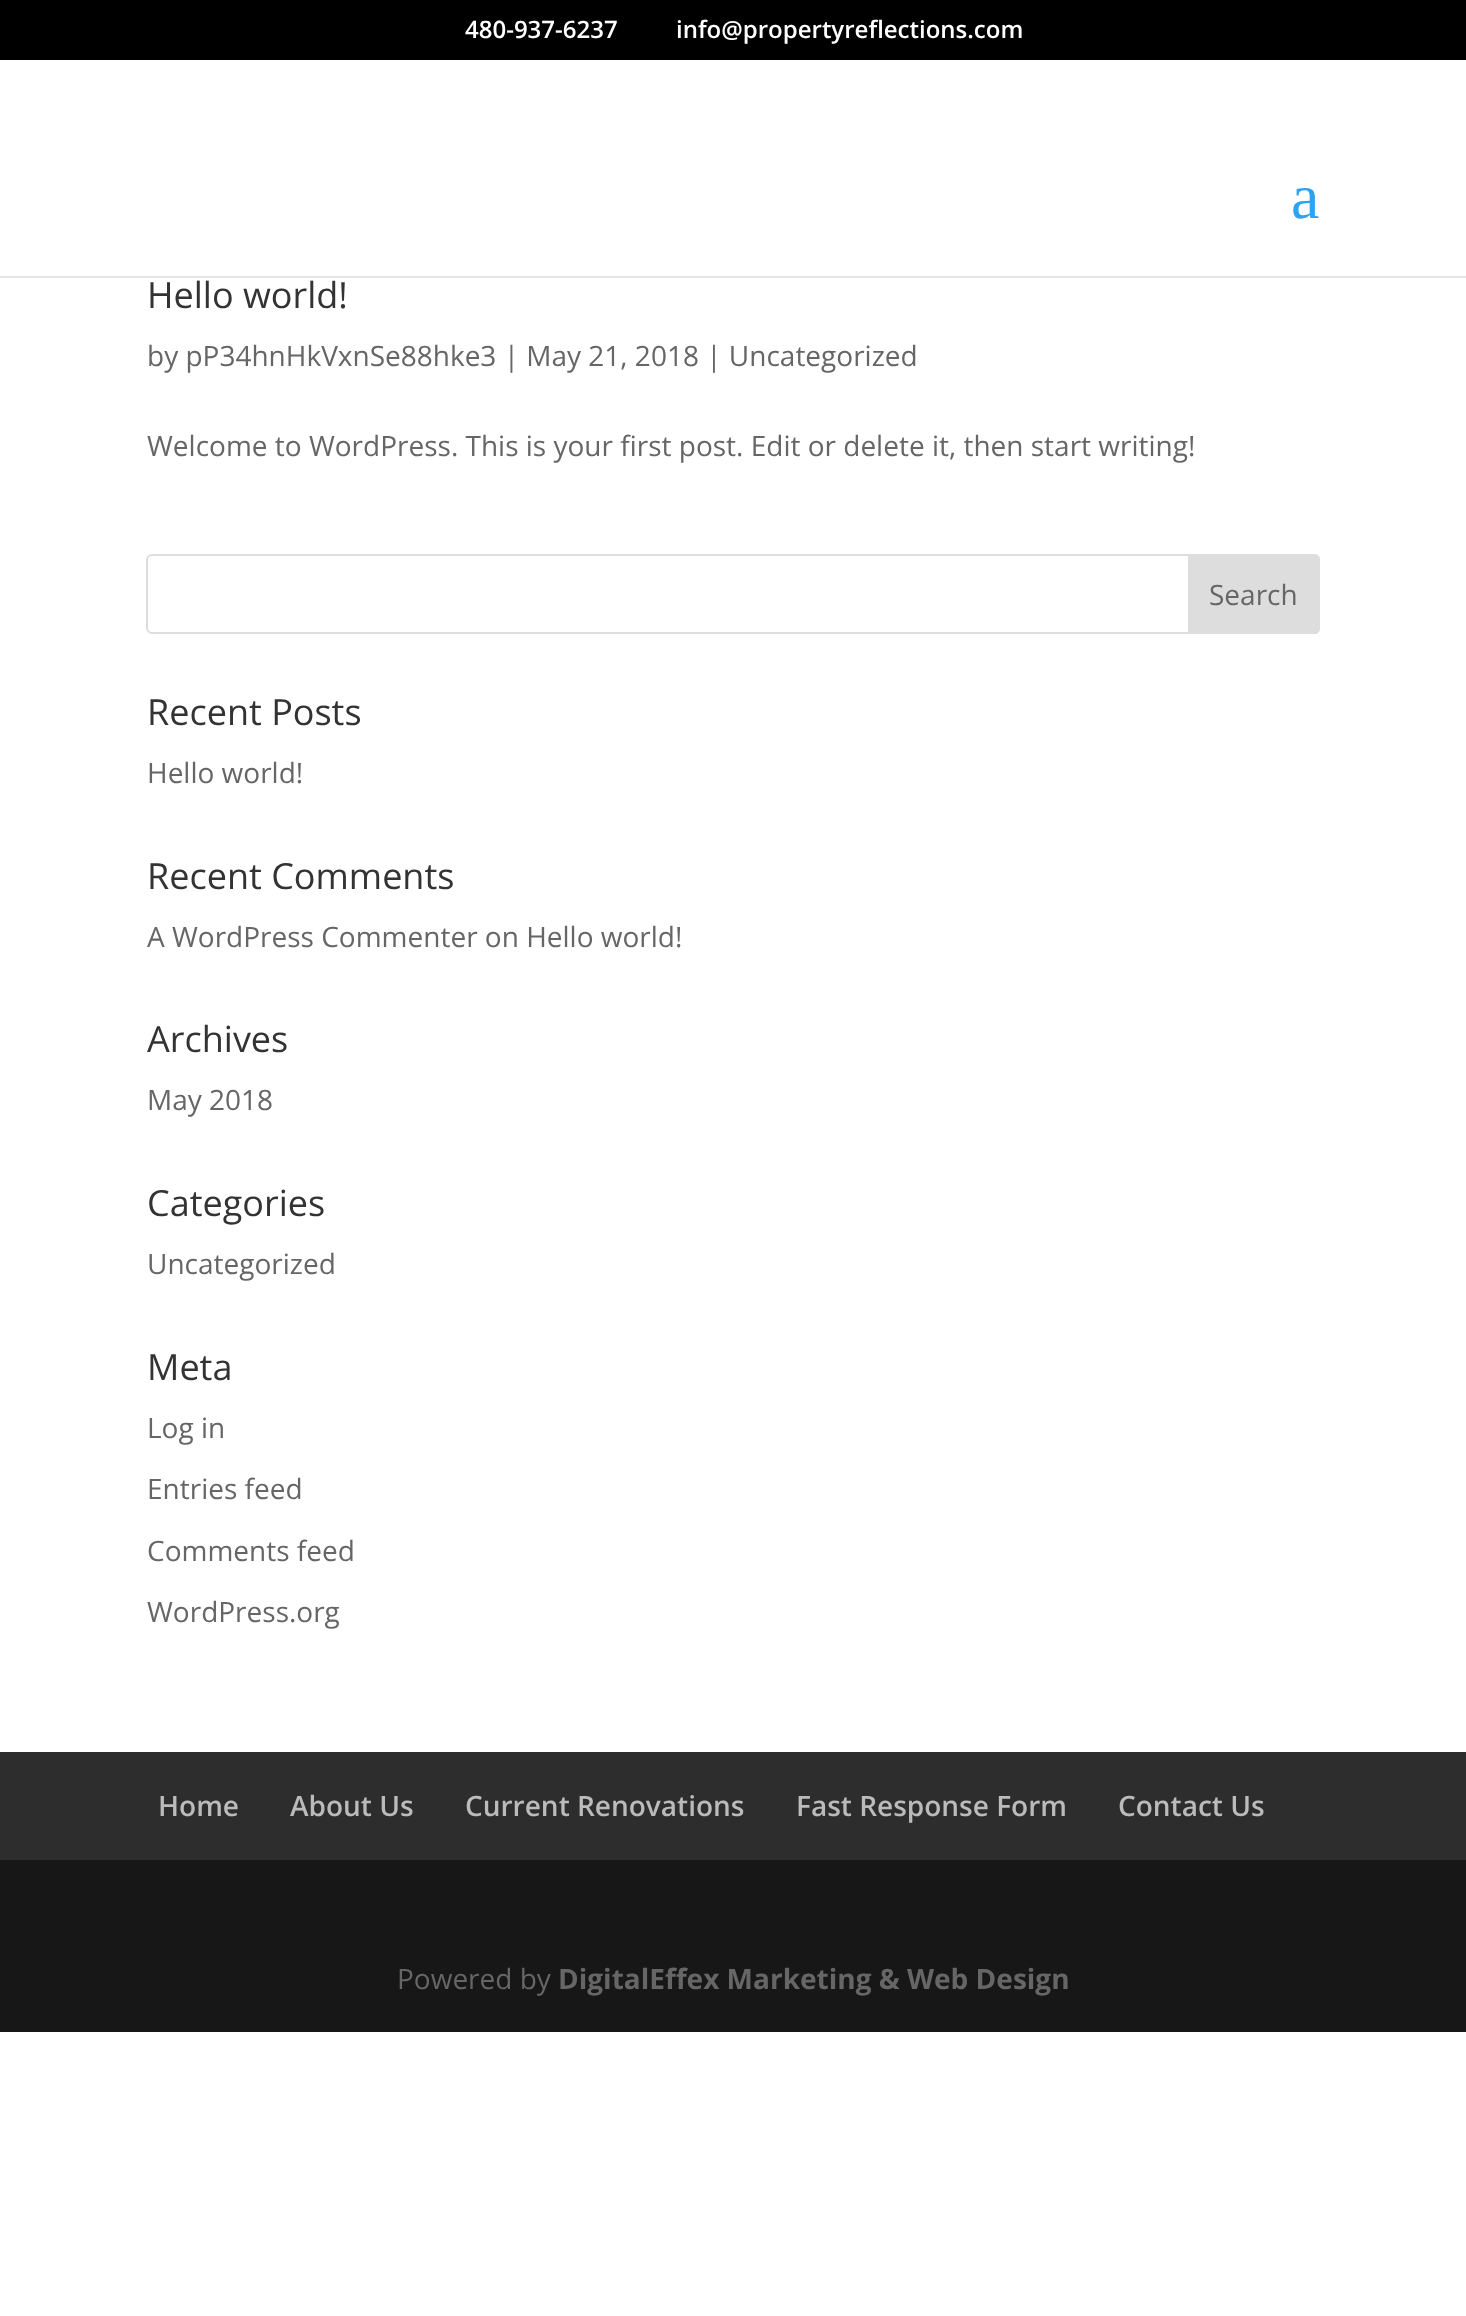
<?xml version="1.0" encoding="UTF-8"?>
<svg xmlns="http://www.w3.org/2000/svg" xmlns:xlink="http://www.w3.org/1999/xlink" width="1466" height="2316">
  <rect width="100%" height="100%" fill="#ffffff" />
  <rect width="1466" height="60" fill="#000000" />
  <rect y="276" width="1466" height="2" fill="#e6e6e6" />
  <rect x="147" y="555" width="1172" height="78" rx="5" fill="none" stroke="#dddddd" stroke-width="2" />
  <path d="M 1189 555 h 125 c 3 0 5 2 5 5 v 68 c 0 3 -2 5 -5 5 h -125 z" fill="#dddddd" stroke="#dddddd" stroke-width="2" />
  <rect y="1752" width="1466" height="108" fill="#2d2d2d" />
  <rect y="1860" width="1466" height="172" fill="#171717" />
  <text x="465" y="38" style="font-family: Open Sans; font-size: 24px; font-weight: 600; fill: #ffffff">480-937-6237</text>
  <text x="676" y="38" style="font-family: Open Sans; font-size: 24px; font-weight: 600; fill: #ffffff">info@propertyreflections.com</text>
  <text x="1291" y="218" style="font-family: Liberation Serif; font-size: 64px; fill: #2ea3f2">a</text>
  <text x="147" y="308" style="font-family: Open Sans; font-size: 36px; fill: #333333">Hello world!</text>
  <text x="147" y="366" style="font-family: Open Sans; font-size: 28px; fill: #666666">by pP34hnHkVxnSe88hke3 | May 21, 2018 | Uncategorized</text>
  <text x="147" y="456" style="font-family: Open Sans; font-size: 28px; fill: #666666">Welcome to WordPress. This is your first post. Edit or delete it, then start writing!</text>
  <text x="1209" y="605" style="font-family: Open Sans; font-size: 28px; fill: #666666">Search</text>
  <text x="147" y="725" style="font-family: Open Sans; font-size: 36px; fill: #333333">Recent Posts</text>
  <text x="147" y="783" style="font-family: Open Sans; font-size: 28px; fill: #666666">Hello world!</text>
  <text x="147" y="889" style="font-family: Open Sans; font-size: 36px; fill: #333333">Recent Comments</text>
  <text x="147" y="947" style="font-family: Open Sans; font-size: 28px; fill: #666666">A WordPress Commenter on Hello world!</text>
  <text x="147" y="1052" style="font-family: Open Sans; font-size: 36px; fill: #333333">Archives</text>
  <text x="147" y="1110" style="font-family: Open Sans; font-size: 28px; fill: #666666">May 2018</text>
  <text x="147" y="1216" style="font-family: Open Sans; font-size: 36px; fill: #333333">Categories</text>
  <text x="147" y="1274" style="font-family: Open Sans; font-size: 28px; fill: #666666">Uncategorized</text>
  <text x="147" y="1380" style="font-family: Open Sans; font-size: 36px; fill: #333333">Meta</text>
  <text x="147" y="1438" style="font-family: Open Sans; font-size: 28px; fill: #666666">Log in</text>
  <text x="147" y="1499" style="font-family: Open Sans; font-size: 28px; fill: #666666">Entries feed</text>
  <text x="147" y="1561" style="font-family: Open Sans; font-size: 28px; fill: #666666">Comments feed</text>
  <text x="147" y="1622" style="font-family: Open Sans; font-size: 28px; fill: #666666">WordPress.org</text>
  <text x="158" y="1816" style="font-family: Open Sans; font-size: 28px; font-weight: 600; fill: #bbbbbb">Home</text>
  <text x="290" y="1816" style="font-family: Open Sans; font-size: 28px; font-weight: 600; fill: #bbbbbb">About Us</text>
  <text x="465" y="1816" style="font-family: Open Sans; font-size: 28px; font-weight: 600; fill: #bbbbbb">Current Renovations</text>
  <text x="796" y="1816" style="font-family: Open Sans; font-size: 28px; font-weight: 600; fill: #bbbbbb">Fast Response Form</text>
  <text x="1118" y="1816" style="font-family: Open Sans; font-size: 28px; font-weight: 600; fill: #bbbbbb">Contact Us</text>
  <text x="397" y="1989" style="font-family: Open Sans; font-size: 28px; fill: #666666">Powered by</text>
  <text x="558" y="1989" style="font-family: Open Sans; font-size: 28px; font-weight: bold; fill: #666666">DigitalEffex Marketing &amp; Web Design</text>
</svg>
